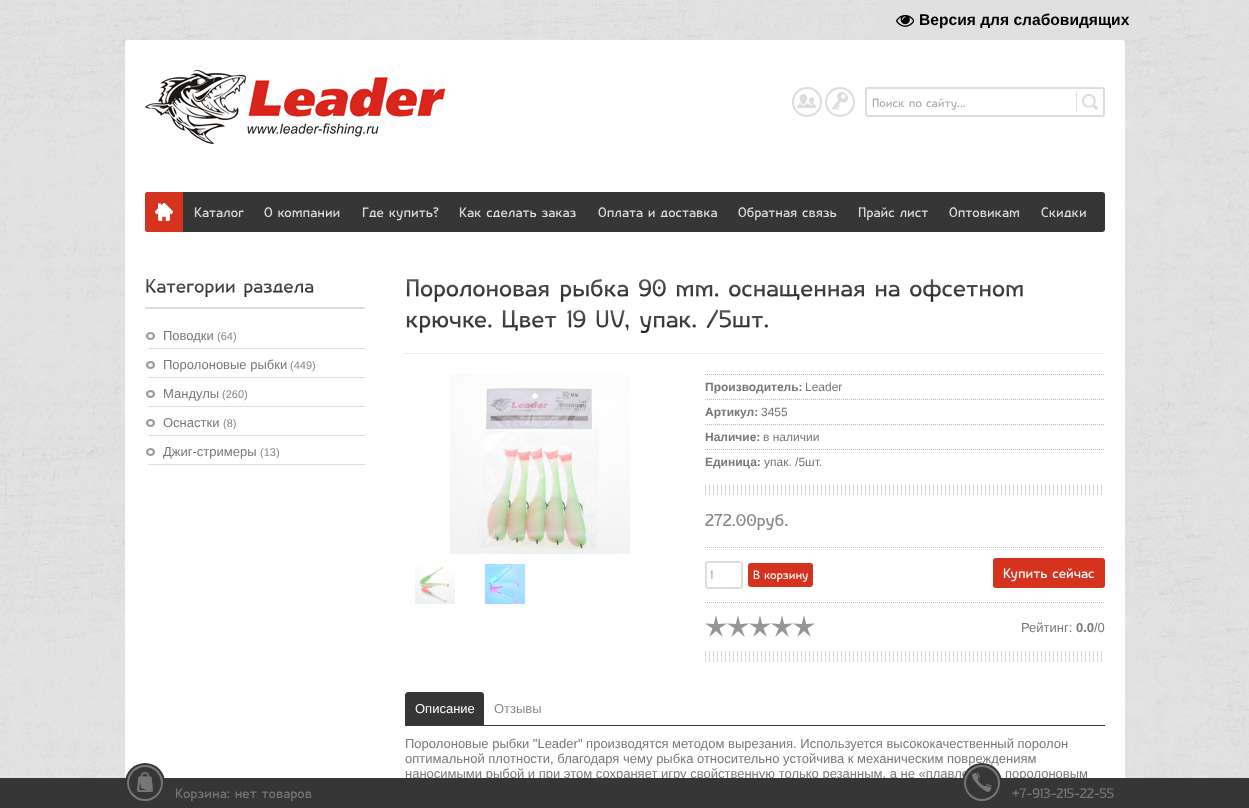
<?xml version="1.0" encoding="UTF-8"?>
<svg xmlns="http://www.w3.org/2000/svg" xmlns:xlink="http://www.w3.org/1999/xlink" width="1249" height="808">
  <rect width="100%" height="100%" fill="#ffffff" />
  <image x="0" y="0" width="1249" height="778" xlink:href="image1.png" />
  <path d="M 876 0 h 273 v 27 c 0 6.5 -5.5 12 -12 12 h -249 c -6.5 0 -12 -5.5 -12 -12 z" fill="#e0e0e0" />
  <image x="896" y="14" width="18" height="13" xlink:href="image2.png" />
  <rect x="125" y="40" width="1000" height="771" rx="3" fill="#ffffff" />
  <image x="145" y="70" width="300" height="74" xlink:href="image3.png" />
  <circle cx="807" cy="102" r="15" fill="#dddddd" />
  <image x="792" y="87" width="30" height="30" xlink:href="image4.png" />
  <circle cx="807" cy="102" r="14" fill="none" stroke="#dddddd" stroke-width="2" />
  <circle cx="840" cy="102" r="15" fill="#dddddd" />
  <image x="825" y="87" width="30" height="30" xlink:href="image5.png" />
  <circle cx="840" cy="102" r="14" fill="none" stroke="#dddddd" stroke-width="2" />
  <rect x="866" y="88" width="238" height="28" rx="2" fill="none" stroke="#dddddd" stroke-width="2" />
  <rect x="1076" y="92" width="1" height="20" fill="#dddddd" />
  <image x="1082" y="94" width="16" height="16" xlink:href="image6.png" />
  <rect x="145" y="192" width="960" height="40" rx="3" fill="#363636" />
  <path d="M 148 192 h 35 v 40 h -35 c -1.5 0 -3 -1.5 -3 -3 v -34 c 0 -1.5 1.5 -3 3 -3 z" fill="#d5331e" />
  <image x="155" y="203" width="18" height="18" xlink:href="image7.png" />
  <rect x="145" y="307" width="220" height="2" fill="#dddddd" />
  <image x="146" y="279" width="89" height="18" xlink:href="image8.png" />
  <image x="244" y="283" width="70" height="14" xlink:href="image9.png" />
  <image x="146" y="332" width="9" height="8" xlink:href="image10.png" />
  <rect x="148" y="348" width="217" height="1" fill="#dddddd" />
  <image x="146" y="361" width="9" height="8" xlink:href="image10.png" />
  <rect x="148" y="377" width="217" height="1" fill="#dddddd" />
  <image x="146" y="390" width="9" height="8" xlink:href="image10.png" />
  <rect x="148" y="406" width="217" height="1" fill="#dddddd" />
  <image x="146" y="419" width="9" height="8" xlink:href="image10.png" />
  <rect x="148" y="435" width="217" height="1" fill="#dddddd" />
  <image x="146" y="448" width="9" height="8" xlink:href="image10.png" />
  <rect x="148" y="464" width="217" height="1" fill="#dddddd" />
  <path d="M 405 353.5 h 700" fill="none" stroke="#dddddd" stroke-dasharray="1 1" />
  <image x="406" y="279" width="143" height="23" xlink:href="image11.png" />
  <image x="560" y="279" width="68" height="23" xlink:href="image12.png" />
  <image x="639" y="279" width="27" height="18" xlink:href="image13.png" />
  <image x="676" y="285" width="43" height="12" xlink:href="image14.png" />
  <image x="729" y="284" width="135" height="16" xlink:href="image15.png" />
  <image x="876" y="284" width="24" height="13" xlink:href="image16.png" />
  <image x="910" y="279" width="113" height="23" xlink:href="image17.png" />
  <image x="406" y="315" width="86" height="18" xlink:href="image18.png" />
  <image x="502" y="310" width="55" height="21" xlink:href="image19.png" />
  <image x="567" y="310" width="19" height="18" xlink:href="image20.png" />
  <image x="596" y="310" width="33" height="21" xlink:href="image21.png" />
  <image x="640" y="315" width="56" height="18" xlink:href="image22.png" />
  <image x="706" y="309" width="62" height="20" xlink:href="image23.png" />
  <image x="450" y="374" width="180" height="180" xlink:href="image24.png" />
  <image x="415" y="566" width="40" height="38" xlink:href="image25.png" />
  <image x="484" y="564" width="42" height="40" xlink:href="image26.png" />
  <path d="M 705 374.5 h 400" fill="none" stroke="#bbbbbb" stroke-dasharray="1 1" />
  <path d="M 705 399.5 h 400" fill="none" stroke="#bbbbbb" stroke-dasharray="1 1" />
  <path d="M 705 424.5 h 400" fill="none" stroke="#bbbbbb" stroke-dasharray="1 1" />
  <path d="M 705 449.5 h 400" fill="none" stroke="#bbbbbb" stroke-dasharray="1 1" />
  <image x="705" y="484" width="397" height="11" xlink:href="image27.png" />
  <path d="M 705 547.5 h 400" fill="none" stroke="#bbbbbb" stroke-dasharray="1 1" />
  <path d="M 705 602.5 h 400" fill="none" stroke="#bbbbbb" stroke-dasharray="1 1" />
  <rect x="706" y="562" width="36" height="26" rx="2" fill="none" stroke="#dddddd" stroke-width="2" />
  <rect x="748" y="563" width="65" height="24" rx="3" fill="#d5331e" />
  <rect x="993" y="558" width="112" height="30" rx="3" fill="#d5331e" />
  <image x="705" y="615" width="110" height="22" xlink:href="image28.png" />
  <image x="705" y="651" width="397" height="11" xlink:href="image27.png" />
  <rect x="405" y="725" width="700" height="1" fill="#363636" />
  <path d="M 408 692 h 73 c 1.5 0 3 1.5 3 3 v 30 h -79 v -30 c 0 -1.5 1.5 -3 3 -3 z" fill="#363636" />
  <text x="919" y="25" style="font-family: Liberation Sans; font-size: 15.6px; font-weight: bold; fill: #000000">Версия для слабовидящих</text>
  <text x="872" y="107" style="font-family: 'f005'; font-size: 14px; font-weight: 500; fill: #aaaaaa">Поиск по сайту...</text>
  <text x="194" y="217" style="font-family: 'f005'; font-size: 16px; font-weight: 500; fill: #dddddd">Каталог</text>
  <text x="264" y="217" style="font-family: 'f005'; font-size: 16px; font-weight: 500; fill: #dddddd">О компании</text>
  <text x="362" y="217" style="font-family: 'f005'; font-size: 16px; font-weight: 500; fill: #dddddd">Где купить?</text>
  <text x="459" y="217" style="font-family: 'f005'; font-size: 16px; font-weight: 500; fill: #dddddd">Как сделать заказ</text>
  <text x="598" y="217" style="font-family: 'f005'; font-size: 16px; font-weight: 500; fill: #dddddd">Оплата и доставка</text>
  <text x="738" y="217" style="font-family: 'f005'; font-size: 16px; font-weight: 500; fill: #dddddd">Обратная связь</text>
  <text x="858" y="217" style="font-family: 'f005'; font-size: 16px; font-weight: 500; fill: #dddddd">Прайс лист</text>
  <text x="949" y="217" style="font-family: 'f005'; font-size: 16px; font-weight: 500; fill: #dddddd">Оптовикам</text>
  <text x="1041" y="217" style="font-family: 'f005'; font-size: 16px; font-weight: 500; fill: #dddddd">Скидки</text>
  <text x="163" y="340" style="font-family: Liberation Sans; font-size: 13px; fill: #777777">Поводки</text>
  <text x="217" y="340" style="font-family: Liberation Sans; font-size: 11px; fill: #888888">(64)</text>
  <text x="163" y="369" style="font-family: Liberation Sans; font-size: 13px; fill: #777777">Поролоновые рыбки</text>
  <text x="290" y="369" style="font-family: Liberation Sans; font-size: 11px; fill: #888888">(449)</text>
  <text x="163" y="398" style="font-family: Liberation Sans; font-size: 13px; fill: #777777">Мандулы</text>
  <text x="222" y="398" style="font-family: Liberation Sans; font-size: 11px; fill: #888888">(260)</text>
  <text x="163" y="427" style="font-family: Liberation Sans; font-size: 13px; fill: #777777">Оснастки</text>
  <text x="223" y="427" style="font-family: Liberation Sans; font-size: 11px; fill: #888888">(8)</text>
  <text x="163" y="456" style="font-family: Liberation Sans; font-size: 13px; fill: #777777">Джиг-стримеры</text>
  <text x="260" y="456" style="font-family: Liberation Sans; font-size: 11px; fill: #888888">(13)</text>
  <text x="705" y="391" style="font-family: Liberation Sans; font-size: 12px; font-weight: bold; fill: #777777">Производитель:</text>
  <text x="805" y="391" style="font-family: Liberation Sans; font-size: 12px; fill: #777777">Leader</text>
  <text x="705" y="416" style="font-family: Liberation Sans; font-size: 12px; font-weight: bold; fill: #777777">Артикул:</text>
  <text x="761" y="416" style="font-family: Liberation Sans; font-size: 12px; fill: #777777">3455</text>
  <text x="705" y="441" style="font-family: Liberation Sans; font-size: 12px; font-weight: bold; fill: #777777">Наличие:</text>
  <text x="763" y="441" style="font-family: Liberation Sans; font-size: 12px; fill: #777777">в наличии</text>
  <text x="705" y="466" style="font-family: Liberation Sans; font-size: 12px; font-weight: bold; fill: #777777">Единица:</text>
  <text x="764" y="466" style="font-family: Liberation Sans; font-size: 12px; fill: #777777">упак. /5шт.</text>
  <text x="705" y="526" style="font-family: 'f005'; font-size: 20px; font-weight: 500; fill: #888888">272.00руб.</text>
  <text x="710" y="579" style="font-family: 'f005'; font-size: 14px; font-weight: 500; fill: #aaaaaa">1</text>
  <text x="753" y="579" style="font-family: 'f005'; font-size: 14px; font-weight: 500; fill: #ffffff">В корзину</text>
  <text x="1003" y="578" style="font-family: 'f005'; font-size: 16px; font-weight: 500; fill: #ffffff">Купить сейчас</text>
  <text x="1021" y="632" style="font-family: Liberation Sans; font-size: 13px; fill: #777777">Рейтинг:</text>
  <text x="1076" y="632" style="font-family: Liberation Sans; font-size: 13px; font-weight: bold; fill: #777777">0.0</text>
  <text x="1094" y="632" style="font-family: Liberation Sans; font-size: 13px; fill: #777777">/0</text>
  <text x="415" y="713" style="font-family: Liberation Sans; font-size: 13px; fill: #ffffff">Описание</text>
  <text x="494" y="713" style="font-family: Liberation Sans; font-size: 13px; fill: #888888">Отзывы</text>
  <text x="405" y="748" style="font-family: Liberation Sans; font-size: 13px; fill: #777777">Поролоновые рыбки "Leader" производятся методом вырезания. Используется высококачественный поролон</text>
  <text x="405" y="763" style="font-family: Liberation Sans; font-size: 13px; fill: #777777">оптимальной плотности, благодаря чему рыбка относительно устойчива к механическим повреждениям</text>
  <text x="405" y="778" style="font-family: Liberation Sans; font-size: 13px; fill: #777777">наносимыми рыбой и при этом сохраняет игру свойственную только резанным, а не «плавле</text>
  <text x="1005" y="778" style="font-family: Liberation Sans; font-size: 13px; fill: #777777">поролоновым</text>
  <rect y="778" width="1249" height="30" fill="#363636" />
  <circle cx="145" cy="783" r="20" fill="#363636" />
  <image x="137" y="772" width="16" height="20" xlink:href="image29.png" />
  <circle cx="145" cy="783" r="17" fill="none" stroke="#777777" stroke-width="2" />
  <text x="175" y="798" style="font-family: 'f005'; font-size: 16px; font-weight: 500; fill: #777777">Корзина: нет товаров</text>
  <circle cx="982" cy="783" r="20" fill="#363636" />
  <image x="972" y="772" width="20" height="20" xlink:href="image30.png" />
  <circle cx="982" cy="783" r="17" fill="none" stroke="#777777" stroke-width="2" />
  <text x="1012" y="798" style="font-family: 'f005'; font-size: 16px; font-weight: 500; fill: #777777">+7-913-215-22-55</text>
</svg>
